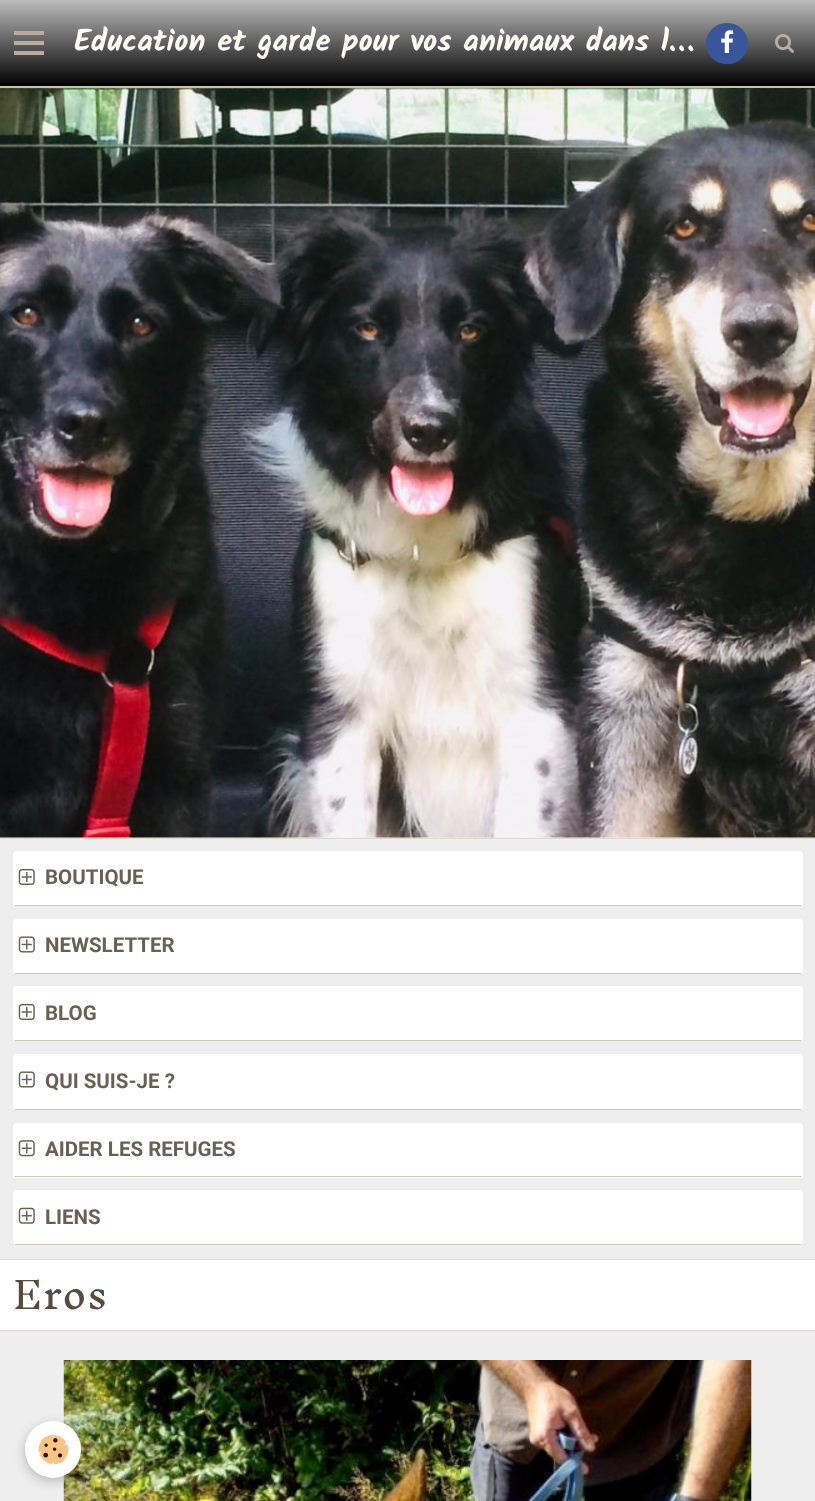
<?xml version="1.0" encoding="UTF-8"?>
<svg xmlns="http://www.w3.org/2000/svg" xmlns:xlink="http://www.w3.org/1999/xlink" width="815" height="1501">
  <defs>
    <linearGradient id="g1" gradientUnits="userSpaceOnUse" x1="408" y1="86" x2="408" y2="0"><stop offset="0" stop-color="#000000" /><stop offset="1" stop-color="#bcbcbc" /></linearGradient>
  </defs>
  <rect width="100%" height="100%" fill="#eeeeee" />
  <rect y="87" width="815" height="1" fill="#bcbcbc" />
  <rect y="86" width="815" height="1" fill="#cdc8b1" />
  <rect width="815" height="86" fill="url(#g1)" />
  <rect x="14" y="41" width="30" height="4" fill="#baada0" />
  <rect x="14" y="31" width="30" height="4" fill="#baada0" />
  <rect x="14" y="51" width="30" height="4" fill="#baada0" />
  <rect x="706" y="23" width="42" height="41" rx="20.5" fill="#385699" />
  <image x="721" y="30" width="13" height="23" xlink:href="image1.png" />
  <image x="775" y="34" width="19" height="19" xlink:href="image2.png" />
  <image x="0" y="88" width="815" height="750" xlink:href="image3.png" />
  <rect y="838" width="815" height="1" fill="#dedbd0" />
  <rect y="1259" width="815" height="1" fill="#dfdcd1" />
  <rect x="13" y="851" width="790" height="55" rx="4" fill="#ffffff" />
  <rect x="15" y="905" width="786" height="1" fill="#cdc8b1" />
  <image x="18" y="868" width="17" height="17" xlink:href="image4.png" />
  <rect x="13" y="919" width="790" height="55" rx="4" fill="#ffffff" />
  <rect x="15" y="973" width="786" height="1" fill="#cdc8b1" />
  <image x="18" y="936" width="17" height="17" xlink:href="image5.png" />
  <rect x="13" y="986" width="790" height="55" rx="4" fill="#ffffff" />
  <rect x="15" y="1040" width="786" height="1" fill="#cdc8b1" />
  <image x="18" y="1003" width="17" height="17" xlink:href="image4.png" />
  <rect x="13" y="1054" width="790" height="56" rx="4" fill="#ffffff" />
  <rect x="15" y="1109" width="786" height="1" fill="#cdc8b1" />
  <image x="18" y="1071" width="17" height="17" xlink:href="image5.png" />
  <rect x="13" y="1123" width="790" height="55" rx="4" fill="#ffffff" />
  <rect x="15" y="1176" width="786" height="1" fill="#cdc8b1" />
  <image x="18" y="1140" width="17" height="17" xlink:href="image6.png" />
  <rect x="13" y="1190" width="790" height="55" rx="4" fill="#ffffff" />
  <rect x="15" y="1244" width="786" height="1" fill="#cdc8b1" />
  <image x="18" y="1207" width="17" height="17" xlink:href="image7.png" />
  <rect y="1260" width="815" height="70" fill="#ffffff" />
  <rect y="1330" width="815" height="1" fill="#e3dec6" />
  <image x="63" y="1360" width="689" height="141" xlink:href="image8.png" />
  <rect x="25" y="1425" width="56" height="56" rx="28" fill="#000000" fill-opacity="0.24" filter="blur(6px)" />
  <rect x="25" y="1421" width="56" height="57" rx="28" fill="#ffffff" />
  <image x="38" y="1434" width="31" height="31" xlink:href="image9.png" />
  <text x="74" y="51" style="font-family: Kalam; font-size: 30.6px; font-weight: bold; fill: #fffbf7">Education et garde pour vos animaux dans l…</text>
  <text x="45" y="884" style="font-family: Roboto; font-size: 20.5px; font-weight: bold; fill: #6b5f53">BOUTIQUE</text>
  <text x="45" y="952" style="font-family: Roboto; font-size: 20.5px; font-weight: bold; fill: #6b5f53">NEWSLETTER</text>
  <text x="45" y="1020" style="font-family: Roboto; font-size: 20.5px; font-weight: bold; fill: #6b5f53">BLOG</text>
  <text x="45" y="1088" style="font-family: Roboto; font-size: 20.5px; font-weight: bold; fill: #6b5f53">QUI SUIS-JE ?</text>
  <text x="45" y="1156" style="font-family: Roboto; font-size: 20.5px; font-weight: bold; fill: #6b5f53">AIDER LES REFUGES</text>
  <text x="45" y="1224" style="font-family: Roboto; font-size: 20.5px; font-weight: bold; fill: #6b5f53">LIENS</text>
  <text x="13" y="1309" style="font-family: Inknut Antiqua; font-size: 37px; font-weight: 300; fill: #584a3e">Eros</text>
</svg>
